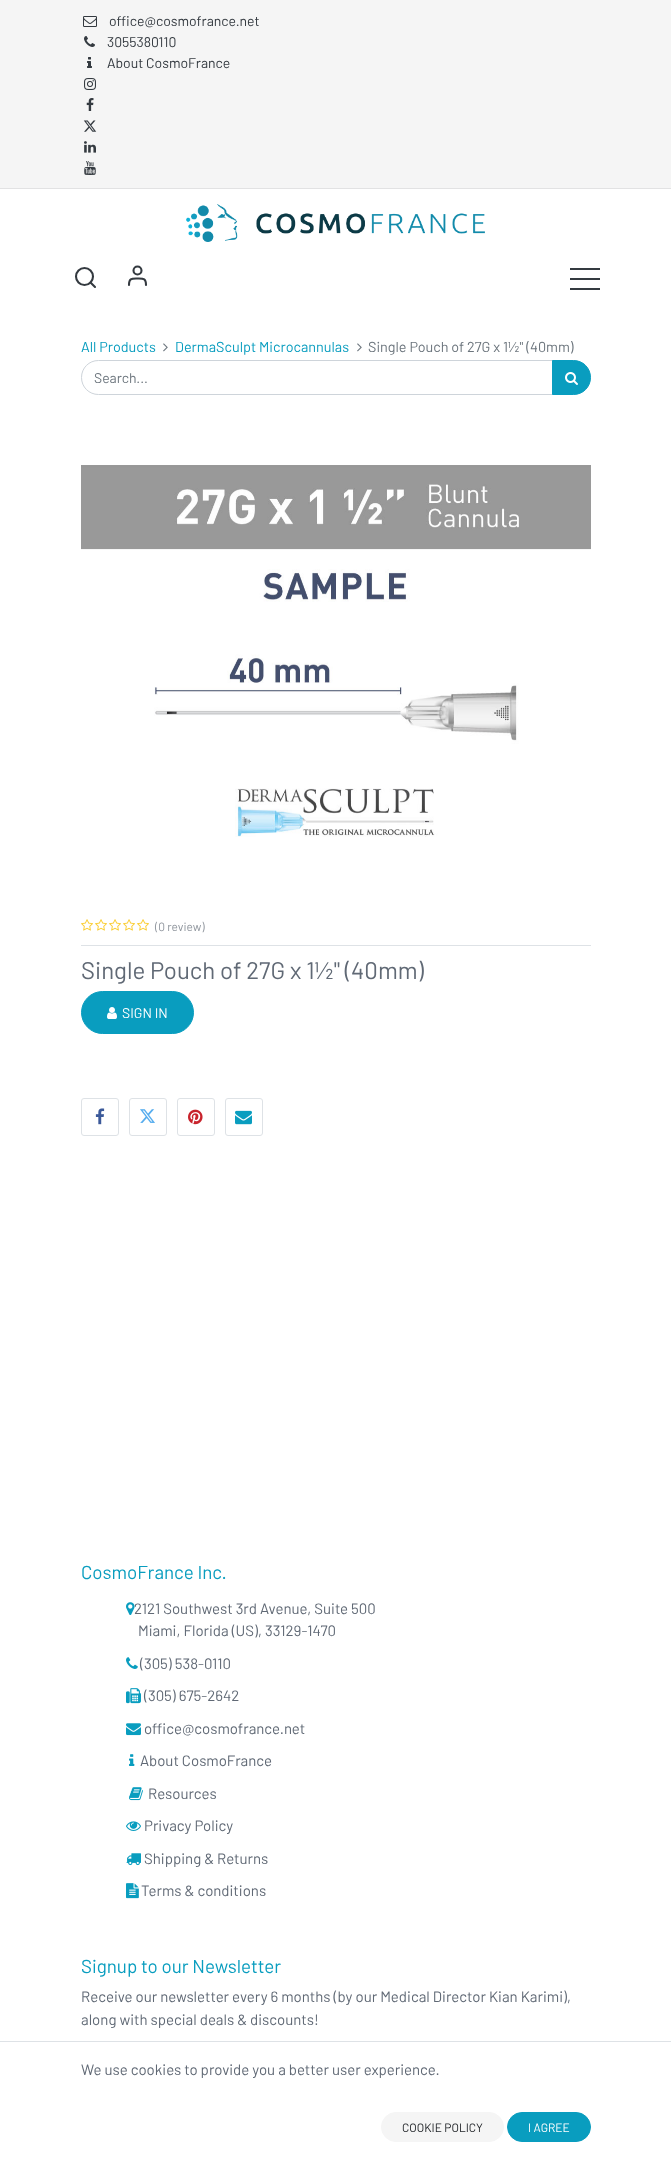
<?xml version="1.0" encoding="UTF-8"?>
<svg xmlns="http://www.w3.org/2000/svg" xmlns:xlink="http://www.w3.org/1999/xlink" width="671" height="2158">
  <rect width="100%" height="100%" fill="#ffffff" />
  <rect width="671" height="188" fill="#f5f5f5" />
  <rect y="188" width="671" height="1" fill="#e2e2e3" />
  <image x="83" y="16" width="14" height="11" xlink:href="image1.png" />
  <image x="84" y="36" width="11" height="11" xlink:href="image2.png" />
  <image x="87" y="57" width="5" height="11" xlink:href="image3.png" />
  <image x="84" y="78" width="12" height="12" xlink:href="image4.png" />
  <image x="86" y="98" width="8" height="13" xlink:href="image5.png" />
  <image x="83" y="120" width="14" height="12" xlink:href="image6.png" />
  <image x="84" y="141" width="12" height="12" xlink:href="image7.png" />
  <image x="84" y="161" width="12" height="14" xlink:href="image8.png" />
  <image x="186" y="204" width="299" height="38" xlink:href="image9.png" />
  <circle cx="137.5" cy="270.5" r="4" fill="none" stroke="#343a40" stroke-width="2.1" />
  <circle cx="84.5" cy="276.5" r="8.5" fill="none" stroke="#343a40" stroke-width="2.1" />
  <path d="M 95 287 l -4.5 -4.5 m 55.5 2.5 c 0 -7 -2.5 -6.5 -8.5 -6.5 c -6 0 -8.5 -0.5 -8.5 6.5" fill="none" stroke="#343a40" stroke-width="2.1" stroke-linecap="round" stroke-linejoin="round" />
  <rect x="570" y="288" width="30" height="2" fill="#343a40" />
  <rect x="570" y="268" width="30" height="2" fill="#343a40" />
  <rect x="570" y="278" width="30" height="2" fill="#343a40" />
  <image x="163" y="343" width="5" height="9" xlink:href="image10.png" />
  <image x="357" y="343" width="5" height="9" xlink:href="image10.png" />
  <path d="M 98.5 360.5 h 454 v 34 h -454 c -9.5 0 -17 -7.5 -17 -17 c 0 -9.5 7.5 -17 17 -17 z" fill="none" stroke="#ced4da" />
  <path d="M 552.5 360.5 h 21 c 9.5 0 17 7.5 17 17 c 0 9.5 -7.5 17 -17 17 h -21 z" fill="#099dbf" stroke="#099dbf" />
  <image x="565" y="372" width="13" height="13" xlink:href="image11.png" />
  <image x="81" y="465" width="510" height="372" xlink:href="image12.png" />
  <rect x="81" y="945" width="510" height="1" fill="#dee2e6" />
  <image x="81" y="919" width="12" height="12" xlink:href="image13.png" />
  <image x="95" y="919" width="12" height="12" xlink:href="image13.png" />
  <image x="109" y="919" width="12" height="12" xlink:href="image13.png" />
  <image x="123" y="919" width="12" height="12" xlink:href="image13.png" />
  <image x="137" y="919" width="12" height="12" xlink:href="image13.png" />
  <rect x="81.5" y="991.5" width="112" height="42" rx="21" fill="#099dbf" stroke="#099dbf" />
  <image x="107" y="1007" width="10" height="12" xlink:href="image14.png" />
  <rect x="81.5" y="1098.5" width="37" height="37" rx="2.5" fill="none" stroke="#dee2e6" />
  <image x="95" y="1108" width="10" height="17" xlink:href="image15.png" />
  <rect x="129.5" y="1098.5" width="37" height="37" rx="2.5" fill="none" stroke="#dee2e6" />
  <image x="140" y="1109" width="15" height="14" xlink:href="image16.png" />
  <rect x="177.5" y="1098.5" width="37" height="37" rx="2.5" fill="none" stroke="#dee2e6" />
  <image x="188" y="1109" width="15" height="16" xlink:href="image17.png" />
  <rect x="225.5" y="1098.5" width="37" height="37" rx="2.5" fill="none" stroke="#dee2e6" />
  <image x="235" y="1110" width="17" height="15" xlink:href="image18.png" />
  <image x="126" y="1602" width="9" height="13" xlink:href="image19.png" />
  <image x="126" y="1657" width="12" height="12" xlink:href="image20.png" />
  <image x="126" y="1688" width="15" height="16" xlink:href="image21.png" />
  <image x="126" y="1723" width="15" height="13" xlink:href="image22.png" />
  <image x="129" y="1754" width="6" height="12" xlink:href="image23.png" />
  <image x="129" y="1787" width="14" height="14" xlink:href="image24.png" />
  <image x="126" y="1821" width="15" height="10" xlink:href="image25.png" />
  <image x="126" y="1853" width="15" height="13" xlink:href="image26.png" />
  <image x="126" y="1883" width="13" height="16" xlink:href="image27.png" />
  <rect y="2041" width="671" height="1" fill="#dee2e6" />
  <rect x="381.5" y="2112.5" width="122" height="29" rx="14.5" fill="#f5f5f5" stroke="#f5f5f5" />
  <rect x="507.5" y="2112.5" width="83" height="29" rx="14.5" fill="#099dbf" stroke="#099dbf" />
  <text x="109" y="26" style="font-family: Barlow; font-size: 14px; fill: #343a40">office@cosmofrance.net</text>
  <text x="107" y="47" style="font-family: Barlow; font-size: 14px; fill: #343a40">3055380110</text>
  <text x="107" y="68" style="font-family: Barlow; font-size: 14px; fill: #343a40">About CosmoFrance</text>
  <text x="81" y="352" style="font-family: Barlow; font-size: 14.4px; fill: #099dbf">All Products</text>
  <text x="175" y="352" style="font-family: Barlow; font-size: 14.4px; fill: #099dbf">DermaSculpt Microcannulas</text>
  <text x="368" y="352" style="font-family: Barlow; font-size: 14.4px; fill: #6c757d">Single Pouch of 27G x 1½" (40mm)</text>
  <text x="94" y="383" style="font-family: Barlow; font-size: 14px; fill: #6c757d">Search...</text>
  <text x="155" y="931" style="font-family: Barlow; font-size: 12px; fill: #90969e">(0 review)</text>
  <text x="81" y="979" style="font-family: Barlow; font-size: 24px; fill: #606975">Single Pouch of 27G x 1½" (40mm)</text>
  <text x="122" y="1018" style="font-family: Barlow; font-size: 14px; fill: #ffffff">SIGN IN</text>
  <text x="81" y="1579" style="font-family: Barlow; font-size: 18.75px; fill: #099dbf">CosmoFrance Inc.</text>
  <text x="134" y="1614" style="font-family: Barlow; font-size: 15px; fill: #606975">2121 Southwest 3rd Avenue, Suite 500</text>
  <text x="138" y="1636" style="font-family: Barlow; font-size: 15px; fill: #606975">Miami, Florida (US), 33129-1470</text>
  <text x="140" y="1669" style="font-family: Barlow; font-size: 15px; fill: #606975">(305) 538-0110</text>
  <text x="144" y="1701" style="font-family: Barlow; font-size: 15px; fill: #606975">(305) 675-2642</text>
  <text x="144" y="1734" style="font-family: Barlow; font-size: 15px; fill: #606975">office@cosmofrance.net</text>
  <text x="140" y="1766" style="font-family: Barlow; font-size: 15px; fill: #606975">About CosmoFrance</text>
  <text x="148" y="1799" style="font-family: Barlow; font-size: 15px; fill: #606975">Resources</text>
  <text x="144" y="1831" style="font-family: Barlow; font-size: 15px; fill: #606975">Privacy Policy</text>
  <text x="144" y="1864" style="font-family: Barlow; font-size: 15px; fill: #606975">Shipping &amp; Returns</text>
  <text x="141" y="1896" style="font-family: Barlow; font-size: 15px; fill: #606975">Terms &amp; conditions</text>
  <text x="81" y="1973" style="font-family: Barlow; font-size: 18.75px; fill: #099dbf">Signup to our Newsletter</text>
  <text x="81" y="2002" style="font-family: Barlow; font-size: 15px; fill: #606975">Receive our newsletter every 6 months (by our Medical Director Kian Karimi),</text>
  <text x="81" y="2025" style="font-family: Barlow; font-size: 15px; fill: #606975">along with special deals &amp; discounts!</text>
  <text x="81" y="2075" style="font-family: Barlow; font-size: 15px; fill: #606975">We use cookies to provide you a better user experience.</text>
  <text x="402" y="2132" style="font-family: Barlow; font-size: 12px; fill: #212529">COOKIE POLICY</text>
  <text x="528" y="2132" style="font-family: Barlow; font-size: 12px; fill: #ffffff">I AGREE</text>
</svg>
